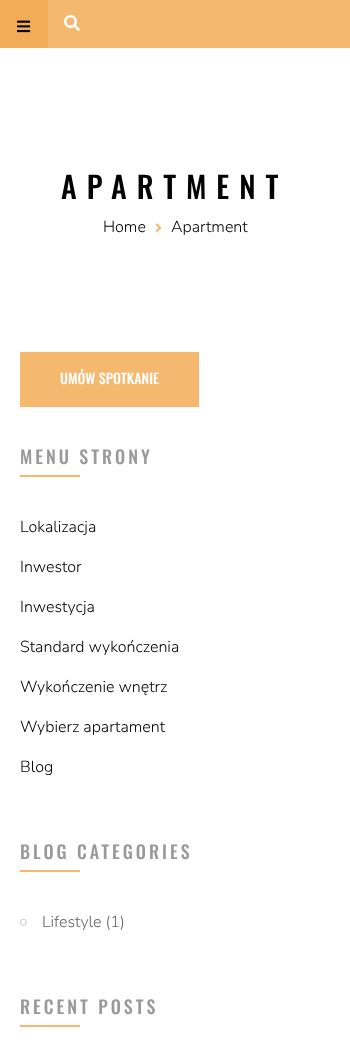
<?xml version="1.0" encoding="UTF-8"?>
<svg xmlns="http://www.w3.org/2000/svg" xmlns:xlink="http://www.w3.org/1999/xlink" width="350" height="1046">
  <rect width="100%" height="100%" fill="#ffffff" />
  <rect x="48" width="302" height="48" fill="#f4b86f" />
  <rect width="48" height="48" fill="#f2ac57" />
  <image x="17" y="20" width="14" height="13" xlink:href="image1.png" />
  <image x="64" y="15" width="16" height="16" xlink:href="image2.png" />
  <image x="155" y="223" width="7" height="9" xlink:href="image3.png" />
  <rect x="20" y="352" width="179" height="55" fill="#f4b86f" />
  <rect x="20" y="475" width="60" height="2" fill="#f4b86f" />
  <rect x="20" y="870" width="60" height="2" fill="#f4b86f" />
  <image x="20" y="918" width="7" height="8" xlink:href="image4.png" />
  <rect x="20" y="1025" width="60" height="2" fill="#f4b86f" />
  <text x="61" y="199" style="font-family: Oswald; font-size: 30px; font-weight: 500; letter-spacing: 10px; fill: #000000">APARTMENT</text>
  <text x="103" y="232" style="font-family: Nunito; font-size: 16px; font-weight: 300; fill: #000000">Home</text>
  <text x="171" y="232" style="font-family: Nunito; font-size: 16px; font-weight: 300; fill: #000000">Apartment</text>
  <text x="60" y="384" style="font-family: Oswald; font-size: 14px; font-weight: 500; fill: #ffffff">UMÓW SPOTKANIE</text>
  <text x="20" y="464" style="font-family: Oswald; font-size: 18px; font-weight: 500; letter-spacing: 3px; fill: #999999">MENU STRONY</text>
  <text x="20" y="532" style="font-family: Nunito; font-size: 16px; font-weight: 300; fill: #000000">Lokalizacja</text>
  <text x="20" y="572" style="font-family: Nunito; font-size: 16px; font-weight: 300; fill: #000000">Inwestor</text>
  <text x="20" y="612" style="font-family: Nunito; font-size: 16px; font-weight: 300; fill: #000000">Inwestycja</text>
  <text x="20" y="652" style="font-family: Nunito; font-size: 16px; font-weight: 300; fill: #000000">Standard wykończenia</text>
  <text x="20" y="692" style="font-family: Nunito; font-size: 16px; font-weight: 300; fill: #000000">Wykończenie wnętrz</text>
  <text x="20" y="732" style="font-family: Nunito; font-size: 16px; font-weight: 300; fill: #000000">Wybierz apartament</text>
  <text x="20" y="772" style="font-family: Nunito; font-size: 16px; font-weight: 300; fill: #000000">Blog</text>
  <text x="20" y="859" style="font-family: Oswald; font-size: 18px; font-weight: 500; letter-spacing: 3px; fill: #999999">BLOG CATEGORIES</text>
  <text x="42" y="927" style="font-family: Nunito; font-size: 16px; font-weight: 300; fill: #666666">Lifestyle (1)</text>
  <text x="20" y="1014" style="font-family: Oswald; font-size: 18px; font-weight: 500; letter-spacing: 3px; fill: #999999">RECENT POSTS</text>
</svg>
